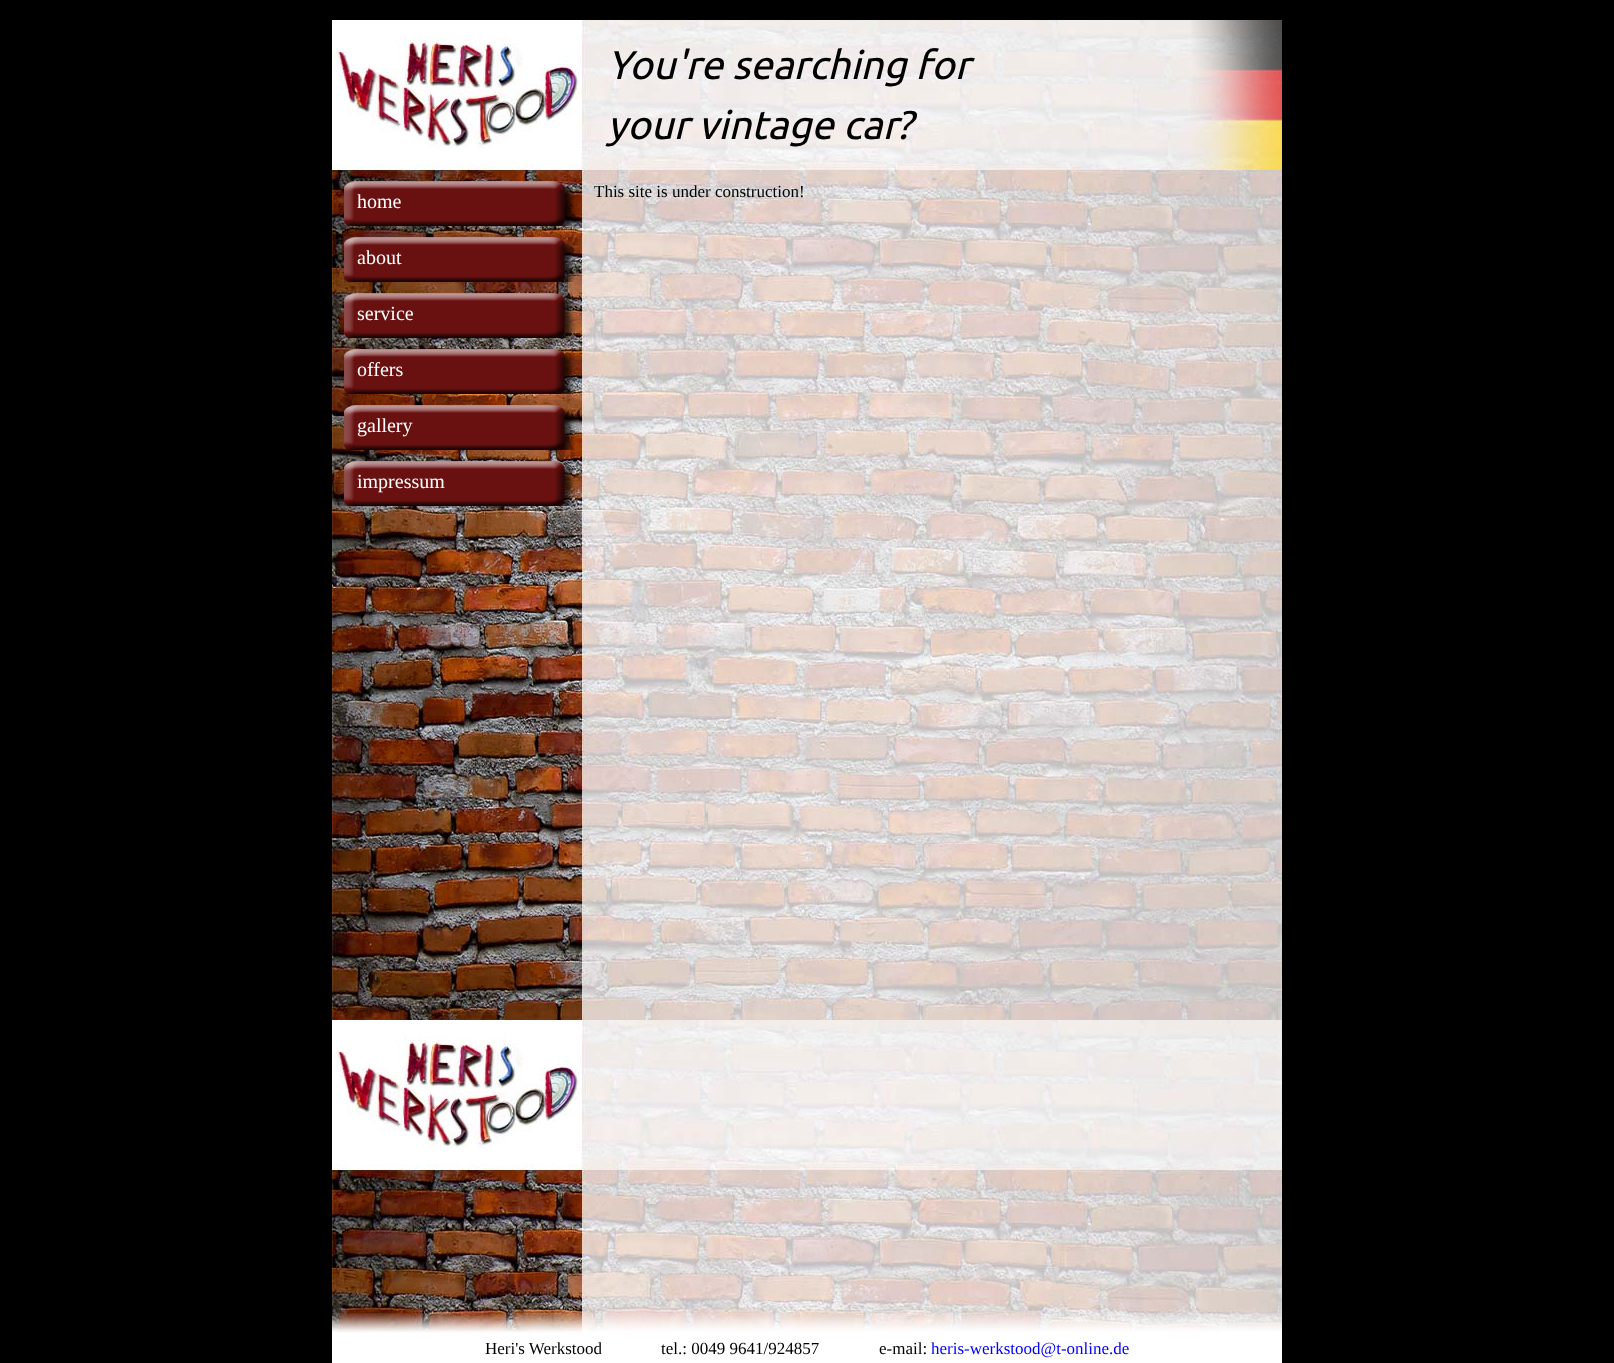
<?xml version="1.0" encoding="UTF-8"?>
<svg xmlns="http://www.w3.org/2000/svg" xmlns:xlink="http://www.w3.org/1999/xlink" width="1614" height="1363">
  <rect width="100%" height="100%" fill="#000000" />
  <image x="332" y="20" width="950" height="1313" xlink:href="image1.png" />
  <image x="1191" y="20" width="91" height="150" xlink:href="image2.png" />
  <image x="344" y="181" width="231" height="45" xlink:href="image3.png" />
  <image x="344" y="237" width="231" height="45" xlink:href="image4.png" />
  <image x="344" y="293" width="231" height="45" xlink:href="image5.png" />
  <image x="344" y="349" width="231" height="45" xlink:href="image6.png" />
  <image x="344" y="405" width="231" height="45" xlink:href="image7.png" />
  <image x="344" y="461" width="231" height="45" xlink:href="image8.png" />
  <image x="332" y="1313" width="950" height="50" xlink:href="image9.png" />
  <text x="607" y="79" style="font-family: Ubuntu; font-size: 40px; font-style: italic; fill: #000000">You're searching for</text>
  <text x="607" y="139" style="font-family: Ubuntu; font-size: 40px; font-style: italic; fill: #000000">your vintage car?</text>
  <text x="594" y="197" style="font-family: Liberation Serif; font-size: 17px; fill: #000000">This site is under construction!</text>
  <text x="357" y="208" style="font-family: Liberation Serif; font-size: 20px; fill: #ffffff">home</text>
  <text x="357" y="264" style="font-family: Liberation Serif; font-size: 20px; fill: #ffffff">about</text>
  <text x="357" y="320" style="font-family: Liberation Serif; font-size: 20px; fill: #ffffff">service</text>
  <text x="357" y="376" style="font-family: Liberation Serif; font-size: 20px; fill: #ffffff">offers</text>
  <text x="357" y="432" style="font-family: Liberation Serif; font-size: 20px; fill: #ffffff">gallery</text>
  <text x="357" y="488" style="font-family: Liberation Serif; font-size: 20px; fill: #ffffff">impressum</text>
  <text x="485" y="1354" style="font-family: Liberation Serif; font-size: 17px; fill: #000000">Heri's Werkstood</text>
  <text x="661" y="1354" style="font-family: Liberation Serif; font-size: 17px; fill: #000000">tel.: 0049 9641/924857</text>
  <text x="879" y="1354" style="font-family: Liberation Serif; font-size: 17px; fill: #000000">e-mail:</text>
  <text x="931" y="1354" style="font-family: Liberation Serif; font-size: 17px; fill: #0000ff">heris-werkstood@t-online.de</text>
</svg>
